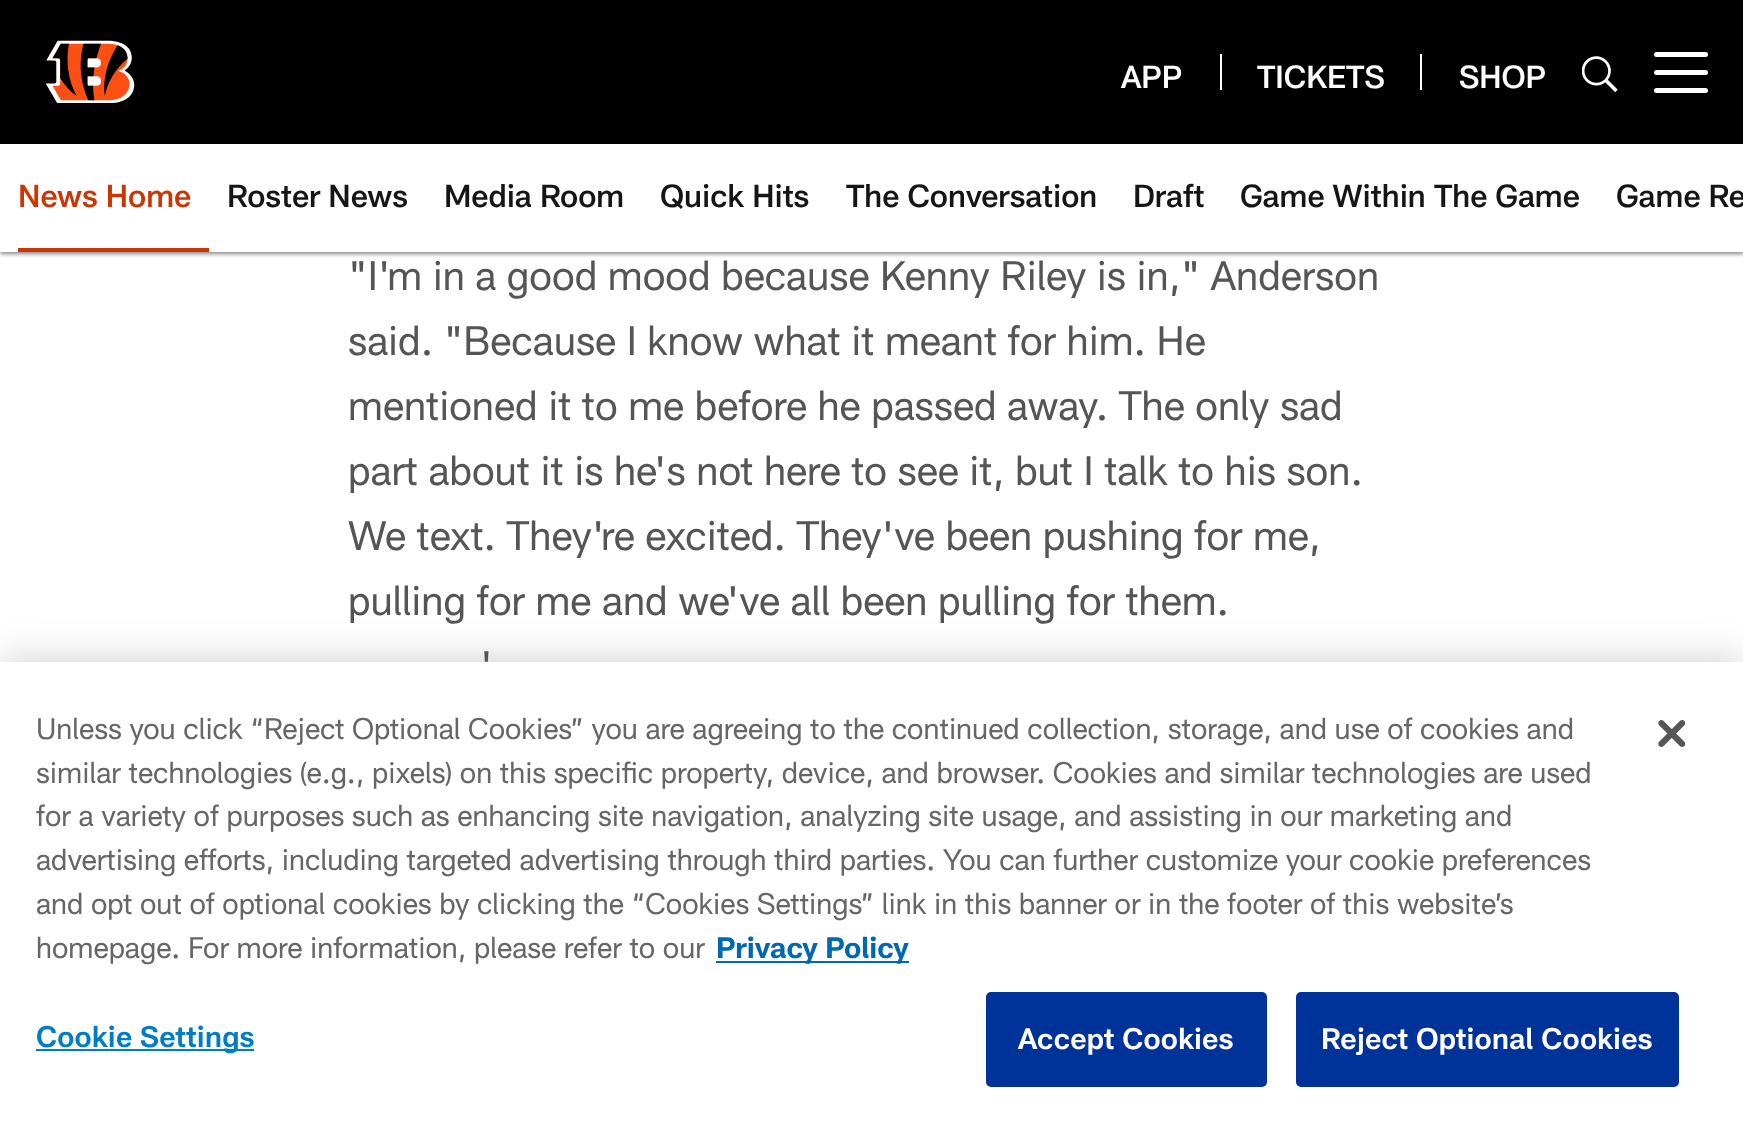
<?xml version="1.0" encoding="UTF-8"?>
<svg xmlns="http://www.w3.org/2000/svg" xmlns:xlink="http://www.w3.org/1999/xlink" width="1743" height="1129">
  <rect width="100%" height="100%" fill="#ffffff" />
  <rect width="1743" height="144" fill="#000000" />
  <image x="45" y="40" width="90" height="63" xlink:href="image1.png" />
  <rect x="1220" y="54" width="2" height="36" fill="#ffffff" />
  <rect x="1420" y="54" width="2" height="36" fill="#ffffff" />
  <image x="1582" y="56" width="36" height="36" xlink:href="image2.png" />
  <rect x="1654" y="70" width="54" height="5" rx="2.5" fill="#ffffff" />
  <rect x="1654" y="52" width="54" height="5" rx="2.5" fill="#ffffff" />
  <rect x="1654" y="88" width="54" height="5" rx="2.5" fill="#ffffff" />
  <rect y="146" width="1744" height="108" fill="#000000" fill-opacity="0.47" filter="blur(2px)" />
  <rect y="144" width="1743" height="108" fill="#ffffff" />
  <rect x="18" y="248" width="191" height="4" fill="#c93603" />
  <rect y="662" width="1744" height="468" fill="#000000" fill-opacity="0.2" filter="blur(20px)" />
  <rect y="662" width="1743" height="467" fill="#ffffff" />
  <rect x="716" y="961" width="193" height="2" fill="#0067b1" />
  <rect x="36" y="1049" width="218" height="2" fill="#007dc3" />
  <rect x="987" y="993" width="279" height="93" rx="4" fill="#003399" stroke="#003399" stroke-width="2" />
  <rect x="1297" y="993" width="381" height="93" rx="4" fill="#003399" stroke="#003399" stroke-width="2" />
  <image x="1658" y="720" width="27" height="27" xlink:href="image3.png" />
  <text x="1121" y="88" style="font-family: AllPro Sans; font-size: 31.5px; font-weight: 500; fill: #ffffff">APP</text>
  <text x="1257" y="88" style="font-family: AllPro Sans; font-size: 31.5px; font-weight: 500; fill: #ffffff">TICKETS</text>
  <text x="1459" y="88" style="font-family: AllPro Sans; font-size: 31.5px; font-weight: 500; fill: #ffffff">SHOP</text>
  <text x="18" y="207" style="font-family: AllPro Sans; font-size: 31.5px; font-weight: 500; fill: #c93603">News Home</text>
  <text x="227" y="207" style="font-family: AllPro Sans; font-size: 31.5px; font-weight: 500; fill: #151515">Roster News</text>
  <text x="444" y="207" style="font-family: AllPro Sans; font-size: 31.5px; font-weight: 500; fill: #151515">Media Room</text>
  <text x="660" y="207" style="font-family: AllPro Sans; font-size: 31.5px; font-weight: 500; fill: #151515">Quick Hits</text>
  <text x="846" y="207" style="font-family: AllPro Sans; font-size: 31.5px; font-weight: 500; fill: #151515">The Conversation</text>
  <text x="1133" y="207" style="font-family: AllPro Sans; font-size: 31.5px; font-weight: 500; fill: #151515">Draft</text>
  <text x="1240" y="207" style="font-family: AllPro Sans; font-size: 31.5px; font-weight: 500; fill: #151515">Game Within The Game</text>
  <text x="1616" y="207" style="font-family: AllPro Sans; font-size: 31.5px; font-weight: 500; fill: #151515">Game Re</text>
  <text x="348" y="290" style="font-family: AllPro Sans; font-size: 40.6px; fill: #555555">"I'm in a good mood because Kenny Riley is in," Anderson</text>
  <text x="348" y="355" style="font-family: AllPro Sans; font-size: 40.6px; fill: #555555">said. "Because I know what it meant for him. He</text>
  <text x="348" y="420" style="font-family: AllPro Sans; font-size: 40.6px; fill: #555555">mentioned it to me before he passed away. The only sad</text>
  <text x="348" y="485" style="font-family: AllPro Sans; font-size: 40.6px; fill: #555555">part about it is he's not here to see it, but I talk to his son.</text>
  <text x="348" y="550" style="font-family: AllPro Sans; font-size: 40.6px; fill: #555555">We text. They're excited. They've been pushing for me,</text>
  <text x="348" y="615" style="font-family: AllPro Sans; font-size: 40.6px; fill: #555555">pulling for me and we've all been pulling for them.</text>
  <text x="480" y="680" style="font-family: AllPro Sans; font-size: 40.6px; fill: #555555">'</text>
  <text x="36" y="739" style="font-family: AllPro Sans; font-size: 29.27px; fill: #666666">Unless you click “Reject Optional Cookies” you are agreeing to the continued collection, storage, and use of cookies and</text>
  <text x="36" y="783" style="font-family: AllPro Sans; font-size: 29.27px; fill: #666666">similar technologies (e.g., pixels) on this specific property, device, and browser. Cookies and similar technologies are used</text>
  <text x="36" y="826" style="font-family: AllPro Sans; font-size: 29.27px; fill: #666666">for a variety of purposes such as enhancing site navigation, analyzing site usage, and assisting in our marketing and</text>
  <text x="36" y="870" style="font-family: AllPro Sans; font-size: 29.27px; fill: #666666">advertising efforts, including targeted advertising through third parties. You can further customize your cookie preferences</text>
  <text x="36" y="914" style="font-family: AllPro Sans; font-size: 29.27px; fill: #666666">and opt out of optional cookies by clicking the “Cookies Settings” link in this banner or in the footer of this website’s</text>
  <text x="36" y="958" style="font-family: AllPro Sans; font-size: 29.27px; fill: #666666">homepage. For more information, please refer to our</text>
  <text x="716" y="958" style="font-family: AllPro Sans; font-size: 29.27px; font-weight: bold; fill: #0067b1">Privacy Policy</text>
  <text x="36" y="1047" style="font-family: AllPro Sans; font-size: 29.27px; font-weight: 600; letter-spacing: 0.25px; fill: #007dc3">Cookie Settings</text>
  <text x="1018" y="1049" style="font-family: AllPro Sans; font-size: 29.27px; font-weight: 600; letter-spacing: 0.25px; fill: #ffffff">Accept Cookies</text>
  <text x="1321" y="1049" style="font-family: AllPro Sans; font-size: 29.27px; font-weight: 600; letter-spacing: 0.25px; fill: #ffffff">Reject Optional Cookies</text>
</svg>
